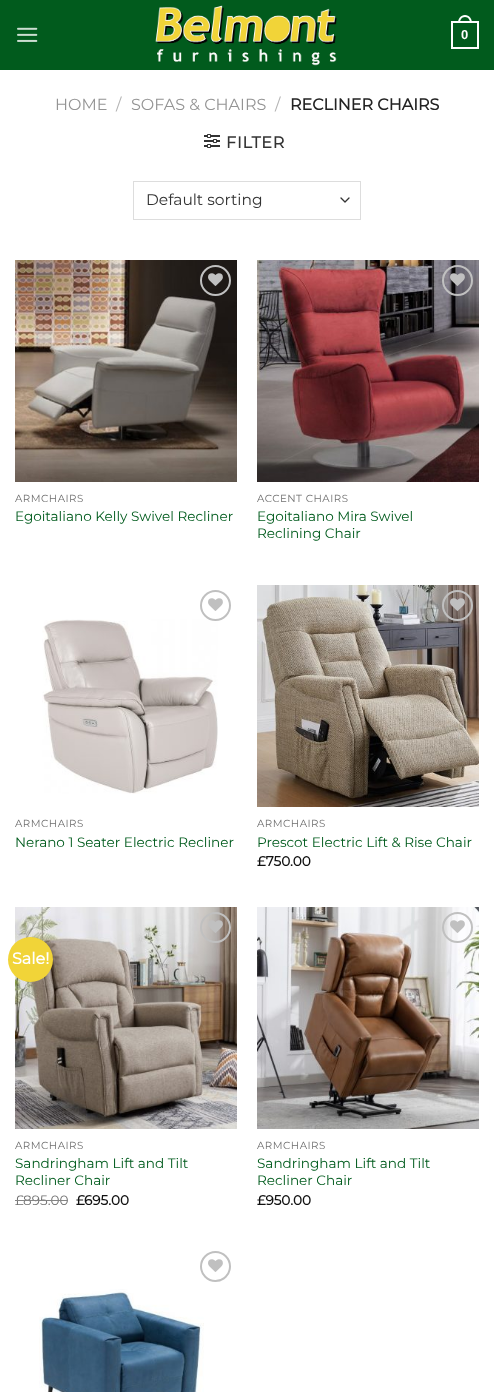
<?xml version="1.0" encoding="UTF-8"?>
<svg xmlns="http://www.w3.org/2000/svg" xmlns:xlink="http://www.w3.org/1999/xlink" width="494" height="1392">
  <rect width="100%" height="100%" fill="#ffffff" />
  <rect width="494" height="70" fill="#015b1d" />
  <image x="17" y="27" width="21" height="15" xlink:href="image1.png" />
  <image x="155" y="5" width="182" height="61" xlink:href="image2.png" />
  <rect x="452" y="22" width="26" height="26" fill="none" stroke="#ffffff" stroke-width="2" />
  <path d="M 465 15 c 4.5 0 7 4 7 8 h -14 c 0 -4 2.5 -8 7 -8 z m 0 2 c 3.5 0 5 3 5 6 h -10 c 0 -3 1.5 -6 5 -6 z" fill="#ffffff" fill-rule="evenodd" />
  <image x="204" y="134" width="16" height="14" xlink:href="image3.png" />
  <path d="M 341 198 l 4 4 l 4 -4" fill="none" stroke="#333333" stroke-width="1.3" stroke-linecap="round" stroke-linejoin="round" />
  <rect x="133.5" y="181.5" width="227" height="38" fill="none" stroke="#dddddd" />
  <image x="15" y="260" width="222" height="222" xlink:href="image4.png" />
  <circle cx="215.5" cy="280.5" r="14.5" fill="none" stroke="#c0c0c0" stroke-width="2" />
  <image x="208" y="273" width="15" height="13" xlink:href="image5.png" />
  <image x="257" y="260" width="222" height="222" xlink:href="image6.png" />
  <circle cx="457.5" cy="280.5" r="14.5" fill="none" stroke="#c0c0c0" stroke-width="2" />
  <image x="450" y="273" width="15" height="13" xlink:href="image7.png" />
  <image x="42" y="619" width="176" height="175" xlink:href="image9.png" />
  <circle cx="215.5" cy="605.5" r="14.5" fill="none" stroke="#c0c0c0" stroke-width="2" />
  <image x="208" y="598" width="15" height="13" xlink:href="image8.png" />
  <image x="257" y="585" width="222" height="222" xlink:href="image10.png" />
  <circle cx="457.5" cy="605.5" r="14.5" fill="none" stroke="#c0c0c0" stroke-width="2" />
  <image x="450" y="598" width="15" height="13" xlink:href="image11.png" />
  <image x="15" y="907" width="222" height="222" xlink:href="image12.png" />
  <circle cx="30.5" cy="959.5" r="22.5" fill="#f1d438" />
  <circle cx="215.5" cy="927.5" r="14.5" fill="none" stroke="#c0c0c0" stroke-width="2" />
  <image x="208" y="920" width="15" height="13" xlink:href="image13.png" />
  <image x="257" y="907" width="222" height="222" xlink:href="image14.png" />
  <circle cx="457.5" cy="927.5" r="14.5" fill="none" stroke="#c0c0c0" stroke-width="2" />
  <image x="450" y="920" width="15" height="13" xlink:href="image15.png" />
  <circle cx="215.5" cy="1266.5" r="14.5" fill="none" stroke="#c0c0c0" stroke-width="2" />
  <image x="208" y="1259" width="15" height="13" xlink:href="image8.png" />
  <image x="39" y="1289" width="165" height="103" xlink:href="image16.png" />
  <text x="461" y="39" style="font-family: Liberation Sans; font-size: 13px; font-weight: bold; fill: #ffffff">0</text>
  <text x="55" y="110" style="font-family: Montserrat; font-size: 16px; font-weight: 100; fill: #949494">HOME</text>
  <text x="116" y="110" style="font-family: Montserrat; font-size: 16px; font-weight: 100; fill: #b2b2b2">/</text>
  <text x="131" y="110" style="font-family: Montserrat; font-size: 16px; font-weight: 100; fill: #949494">SOFAS &amp; CHAIRS</text>
  <text x="275" y="110" style="font-family: Montserrat; font-size: 16px; font-weight: 100; fill: #b2b2b2">/</text>
  <text x="290" y="110" style="font-family: Montserrat; font-size: 16px; font-weight: bold; fill: #222222">RECLINER CHAIRS</text>
  <text x="226" y="148" style="font-family: Montserrat; font-size: 16px; font-weight: bold; letter-spacing: 0.75px; fill: #333333">FILTER</text>
  <text x="146" y="205" style="font-family: Montserrat; font-size: 15.5px; font-weight: 100; fill: #333333">Default sorting</text>
  <text x="15" y="502" style="font-family: Montserrat; font-size: 10.25px; font-weight: 100; letter-spacing: 0.5px; fill: #707070">ARMCHAIRS</text>
  <text x="15" y="521" style="font-family: Montserrat; font-size: 13.6px; font-weight: 100; fill: #015b1d">Egoitaliano Kelly Swivel Recliner</text>
  <text x="257" y="502" style="font-family: Montserrat; font-size: 10.25px; font-weight: 100; letter-spacing: 0.5px; fill: #707070">ACCENT CHAIRS</text>
  <text x="257" y="521" style="font-family: Montserrat; font-size: 13.6px; font-weight: 100; fill: #015b1d">Egoitaliano Mira Swivel</text>
  <text x="257" y="538" style="font-family: Montserrat; font-size: 13.6px; font-weight: 100; fill: #015b1d">Reclining Chair</text>
  <text x="15" y="827" style="font-family: Montserrat; font-size: 10.25px; font-weight: 100; letter-spacing: 0.5px; fill: #707070">ARMCHAIRS</text>
  <text x="15" y="847" style="font-family: Montserrat; font-size: 13.6px; font-weight: 100; fill: #015b1d">Nerano 1 Seater Electric Recliner</text>
  <text x="257" y="827" style="font-family: Montserrat; font-size: 10.25px; font-weight: 100; letter-spacing: 0.5px; fill: #707070">ARMCHAIRS</text>
  <text x="257" y="847" style="font-family: Montserrat; font-size: 13.6px; font-weight: 100; fill: #015b1d">Prescot Electric Lift &amp; Rise Chair</text>
  <text x="257" y="866" style="font-family: Montserrat; font-size: 13.6px; font-weight: bold; fill: #111111">£750.00</text>
  <text x="12" y="964" style="font-family: Montserrat; font-size: 16px; font-weight: bold; fill: #ffffff">Sale!</text>
  <text x="15" y="1149" style="font-family: Montserrat; font-size: 10.25px; font-weight: 100; letter-spacing: 0.5px; fill: #707070">ARMCHAIRS</text>
  <text x="15" y="1168" style="font-family: Montserrat; font-size: 13.6px; font-weight: 100; fill: #015b1d">Sandringham Lift and Tilt</text>
  <text x="15" y="1185" style="font-family: Montserrat; font-size: 13.6px; font-weight: 100; fill: #015b1d">Recliner Chair</text>
  <text x="15" y="1205" style="font-family: Montserrat; font-size: 13.6px; font-weight: 100; fill: #707070">£</text>
  <text x="23" y="1205" style="font-family: Montserrat; font-size: 13.6px; font-weight: 100; fill: #707070">895.00</text>
  <rect x="15" y="1200" width="8" height="1" fill="#858585" />
  <rect x="23" y="1200" width="45" height="1" fill="#858585" />
  <text x="76" y="1205" style="font-family: Montserrat; font-size: 13.6px; font-weight: bold; fill: #111111">£</text>
  <text x="84" y="1205" style="font-family: Montserrat; font-size: 13.6px; font-weight: bold; fill: #111111">695.00</text>
  <text x="257" y="1149" style="font-family: Montserrat; font-size: 10.25px; font-weight: 100; letter-spacing: 0.5px; fill: #707070">ARMCHAIRS</text>
  <text x="257" y="1168" style="font-family: Montserrat; font-size: 13.6px; font-weight: 100; fill: #015b1d">Sandringham Lift and Tilt</text>
  <text x="257" y="1185" style="font-family: Montserrat; font-size: 13.6px; font-weight: 100; fill: #015b1d">Recliner Chair</text>
  <text x="257" y="1205" style="font-family: Montserrat; font-size: 13.6px; font-weight: bold; fill: #111111">£950.00</text>
</svg>
